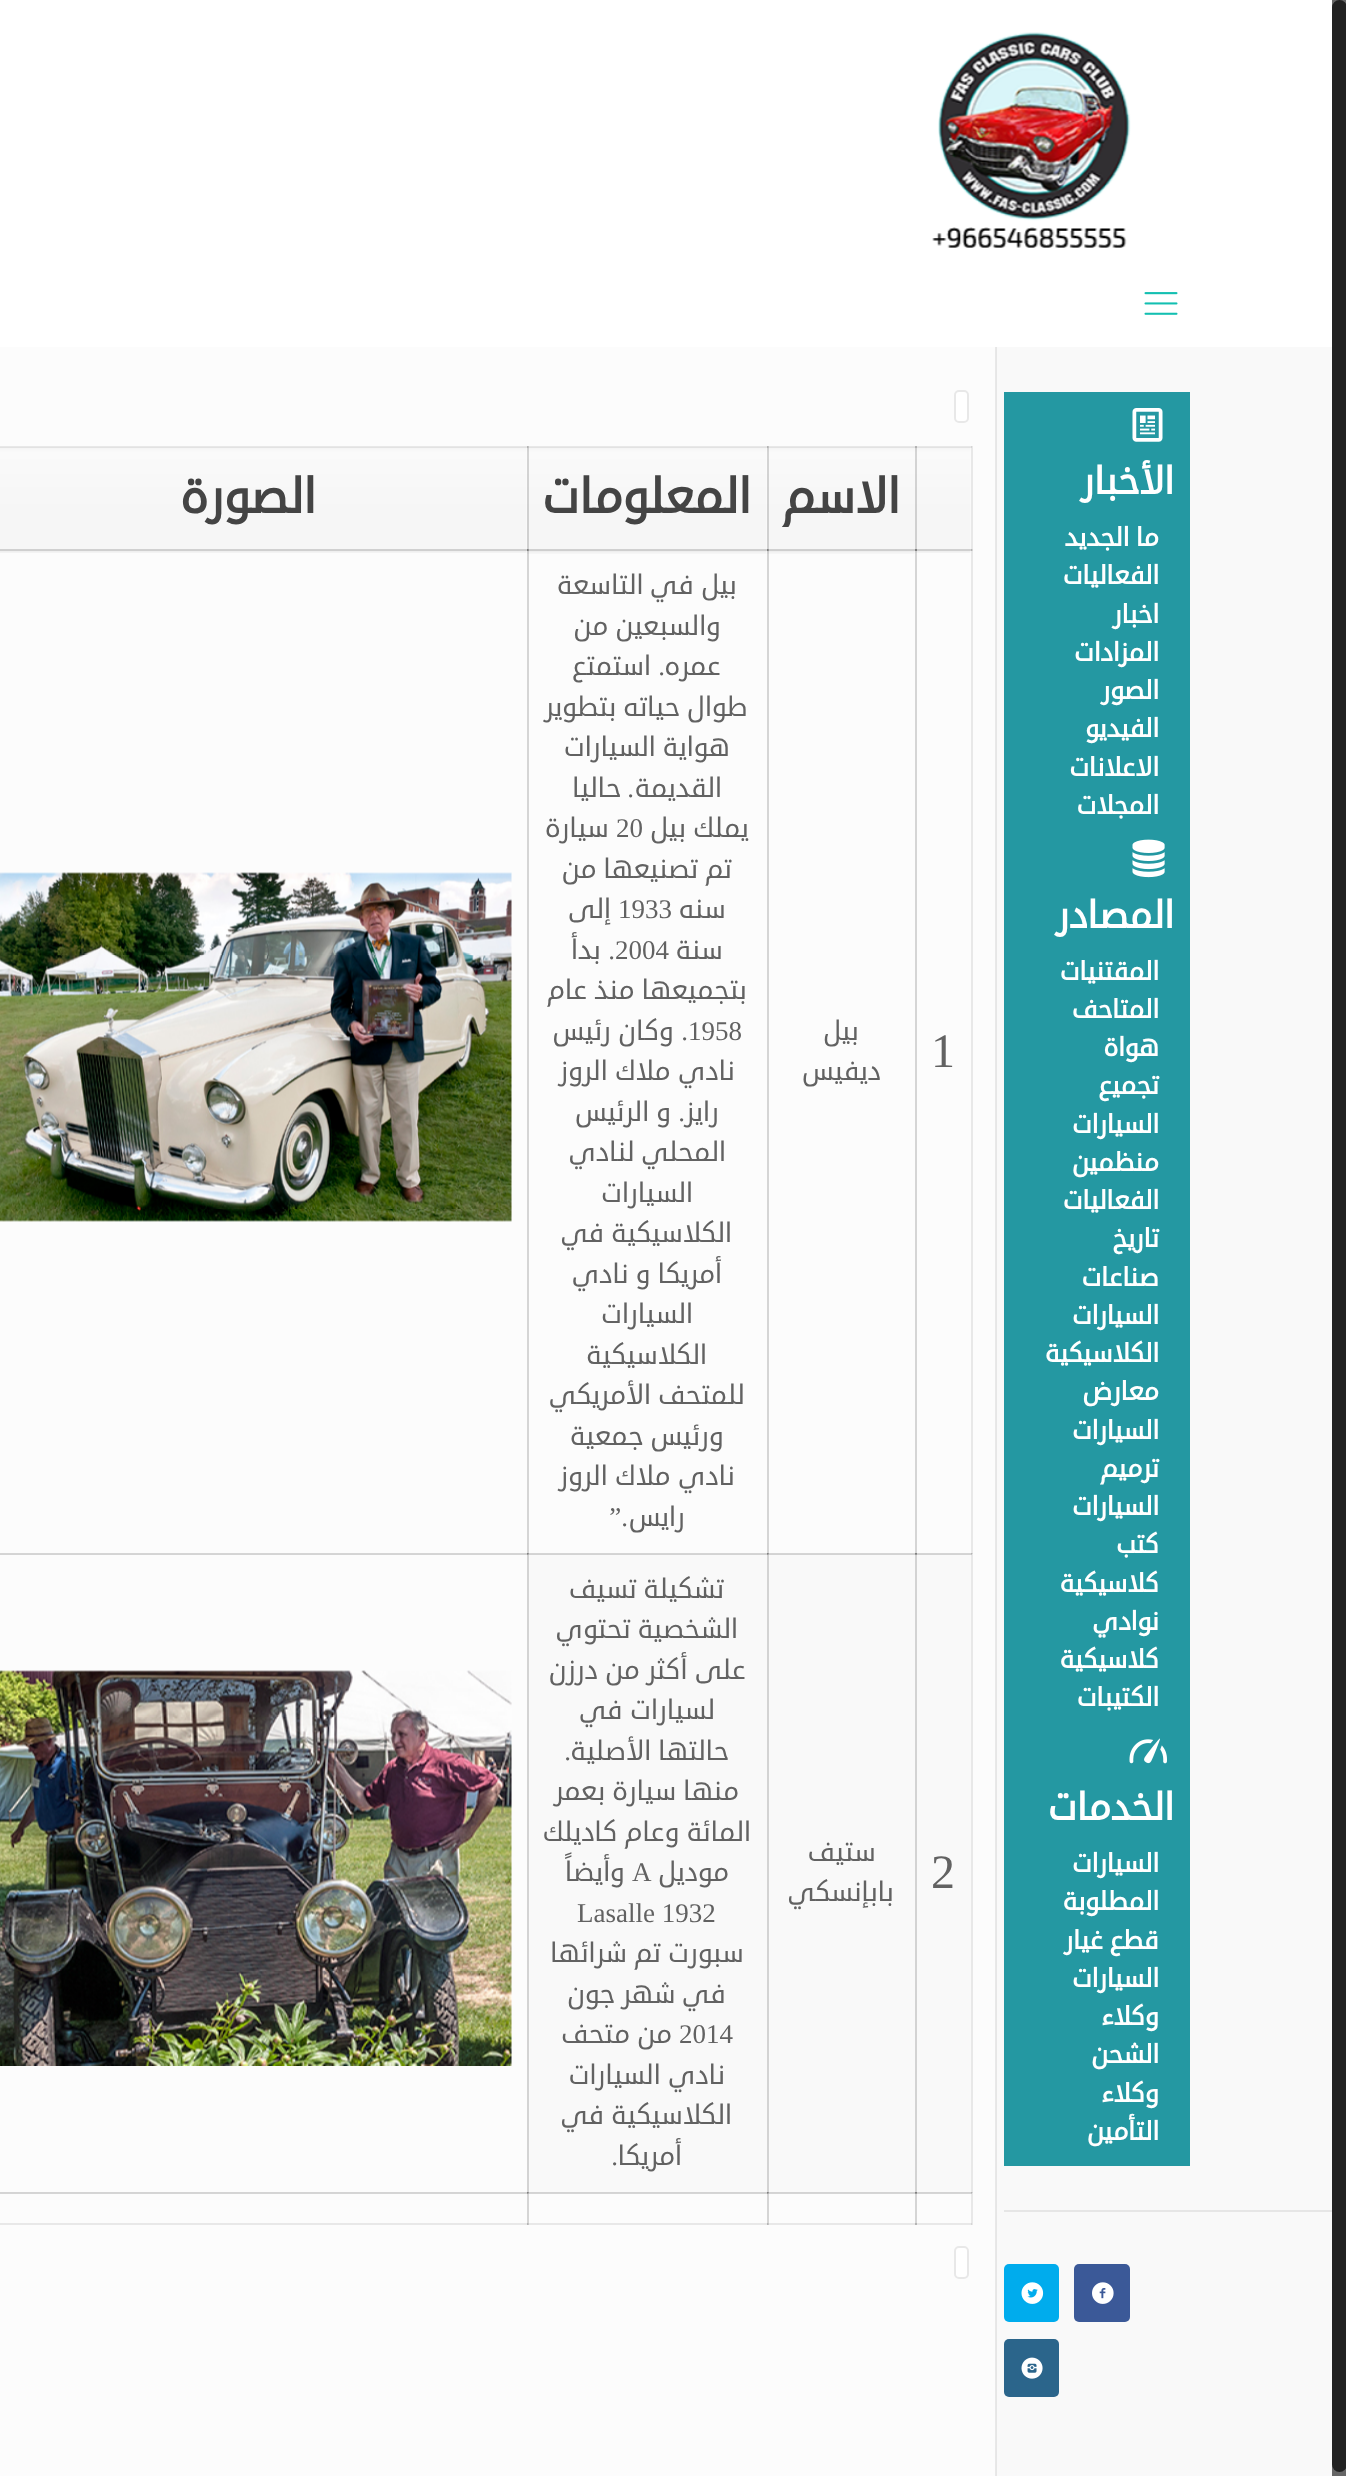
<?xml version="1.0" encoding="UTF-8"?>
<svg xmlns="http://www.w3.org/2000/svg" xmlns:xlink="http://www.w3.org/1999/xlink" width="1346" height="2476">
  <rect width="100%" height="100%" fill="#fcfcfc" />
  <rect x="997" y="347" width="335" height="2129" fill="#f9f9f9" />
  <rect x="971" y="1553" width="2" height="640" fill="#e8e8e8" />
  <rect x="767" y="1553" width="205" height="1" fill="#e8e8e8" />
  <rect x="971" y="1553" width="1" height="2" fill="#d5d5d5" />
  <rect x="915" y="1553" width="2" height="1" fill="#b4b4b4" />
  <rect x="767" y="1553" width="2" height="1" fill="#c4c4c4" />
  <rect x="527" y="1553" width="241" height="1" fill="#e8e8e8" />
  <rect x="767" y="1553" width="1" height="2" fill="#b4b4b4" />
  <rect x="527" y="1553" width="2" height="1" fill="#c4c4c4" />
  <rect y="1553" width="528" height="1" fill="#e8e8e8" />
  <rect x="527" y="1553" width="1" height="2" fill="#b4b4b4" />
  <rect y="2223" width="972" height="2" fill="#e8e8e8" />
  <rect x="971" y="2192" width="2" height="33" fill="#e8e8e8" />
  <rect x="971" y="2192" width="2" height="1" fill="#d5d5d5" />
  <rect x="971" y="2223" width="1" height="2" fill="#d5d5d5" />
  <rect x="915" y="2193" width="57" height="1" fill="#d5d5d5" />
  <rect x="971" y="2192" width="1" height="2" fill="#c4c4c4" />
  <rect x="971" y="2192" width="1" height="1" fill="#b4b4b4" />
  <rect x="915" y="2192" width="2" height="33" fill="#d5d5d5" />
  <rect x="915" y="2223" width="2" height="2" fill="#b4b4b4" />
  <rect x="767" y="2193" width="150" height="1" fill="#d5d5d5" />
  <rect x="915" y="2193" width="2" height="1" fill="#999999" />
  <rect x="767" y="2192" width="2" height="33" fill="#d5d5d5" />
  <rect x="767" y="2223" width="2" height="2" fill="#c4c4c4" />
  <rect x="767" y="2193" width="2" height="1" fill="#b4b4b4" />
  <rect x="767" y="2223" width="1" height="2" fill="#b4b4b4" />
  <rect x="527" y="2193" width="241" height="1" fill="#d5d5d5" />
  <rect x="767" y="2192" width="1" height="2" fill="#999999" />
  <rect x="527" y="2192" width="2" height="33" fill="#d5d5d5" />
  <rect x="527" y="2223" width="2" height="2" fill="#c4c4c4" />
  <rect x="527" y="2193" width="2" height="1" fill="#b4b4b4" />
  <rect x="527" y="2223" width="1" height="2" fill="#b4b4b4" />
  <rect y="2193" width="528" height="1" fill="#d5d5d5" />
  <rect x="527" y="2192" width="1" height="2" fill="#999999" />
  <rect x="1332" width="14" height="2476" fill="#666666" />
  <rect x="1332" width="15" height="2472" rx="7.5" fill="#222222" />
  <rect width="1332" height="347" fill="#ffffff" />
  <image x="932" y="32" width="199" height="216" xlink:href="image1.png" />
  <image x="1144" y="292" width="34" height="23" xlink:href="image2.png" />
  <rect x="995" y="347" width="1" height="2129" fill="#e8e8e8" />
  <rect x="996" y="347" width="1" height="2129" fill="#e6e6e6" />
  <rect x="1004" y="392" width="186" height="1774" fill="#2498a2" />
  <image x="1132" y="408" width="31" height="34" xlink:href="image3.png" />
  <image x="1132" y="839" width="33" height="39" xlink:href="image4.png" />
  <image x="1129" y="1738" width="38" height="26" xlink:href="image5.png" />
  <rect x="1004" y="2210" width="328" height="2" fill="#e6e6e6" />
  <rect x="1074" y="2264" width="56" height="58" rx="5" fill="#3b5998" />
  <image x="1092" y="2282" width="22" height="22" xlink:href="image6.png" />
  <rect x="1004" y="2264" width="55" height="58" rx="5" fill="#00aced" />
  <image x="1021" y="2282" width="23" height="22" xlink:href="image7.png" />
  <rect x="1004" y="2339" width="55" height="58" rx="5" fill="#2b658b" />
  <image x="1021" y="2357" width="22" height="22" xlink:href="image8.png" />
  <rect x="955" y="391" width="13" height="31" rx="4" fill="#ffffff" stroke="#e8e8e8" stroke-width="2" />
  <image x="915" y="447" width="56" height="103" xlink:href="image9.png" />
  <image x="766" y="447" width="149" height="103" xlink:href="image10.png" />
  <image x="527" y="447" width="239" height="103" xlink:href="image11.png" />
  <image x="0" y="447" width="527" height="103" xlink:href="image12.png" />
  <rect y="446" width="528" height="2" fill="#000000" fill-opacity="0.08" />
  <image x="527" y="550" width="240" height="4" xlink:href="image15.png" />
  <image x="767" y="550" width="148" height="4" xlink:href="image14.png" />
  <image x="0" y="550" width="527" height="3" xlink:href="image16.png" />
  <rect y="549" width="528" height="2" fill="#000000" fill-opacity="0.08" />
  <rect x="527" y="549" width="2" height="1005" fill="#000000" fill-opacity="0.08" />
  <rect x="527" y="549" width="241" height="2" fill="#000000" fill-opacity="0.08" />
  <rect x="767" y="549" width="2" height="1005" fill="#000000" fill-opacity="0.08" />
  <rect x="527" y="1554" width="444" height="1" fill="#e5e5e5" />
  <rect x="527" y="1554" width="2" height="639" fill="#d3d3d3" />
  <rect x="527" y="1554" width="2" height="1" fill="#c2c2c2" />
  <rect x="527" y="1554" width="1" height="1" fill="#b2b2b2" />
  <rect y="1554" width="527" height="1" fill="#e6e6e6" />
  <rect y="1553" width="528" height="2" fill="#000000" fill-opacity="0.08" />
  <rect x="767" y="1554" width="2" height="639" fill="#d3d3d3" />
  <rect x="767" y="1554" width="2" height="1" fill="#c2c2c2" />
  <rect x="767" y="1554" width="1" height="1" fill="#b2b2b2" />
  <rect x="527" y="1553" width="241" height="2" fill="#000000" fill-opacity="0.08" />
  <rect x="527" y="549" width="2" height="1005" fill="#000000" fill-opacity="0.08" />
  <rect x="527" y="446" width="2" height="105" fill="#000000" fill-opacity="0.08" />
  <rect x="527" y="446" width="241" height="2" fill="#000000" fill-opacity="0.08" />
  <image x="915" y="550" width="56" height="3" xlink:href="image13.png" />
  <rect x="767" y="549" width="150" height="2" fill="#000000" fill-opacity="0.08" />
  <rect x="915" y="549" width="2" height="1005" fill="#000000" fill-opacity="0.08" />
  <rect x="915" y="1554" width="2" height="639" fill="#d3d3d3" />
  <rect x="915" y="1554" width="2" height="1" fill="#b2b2b2" />
  <rect x="767" y="1553" width="150" height="2" fill="#000000" fill-opacity="0.08" />
  <rect x="767" y="549" width="2" height="1005" fill="#000000" fill-opacity="0.08" />
  <rect x="767" y="446" width="2" height="105" fill="#000000" fill-opacity="0.08" />
  <rect x="767" y="446" width="150" height="2" fill="#000000" fill-opacity="0.08" />
  <rect x="915" y="549" width="57" height="2" fill="#000000" fill-opacity="0.08" />
  <rect x="971" y="549" width="2" height="1005" fill="#000000" fill-opacity="0.08" />
  <rect x="915" y="1553" width="57" height="2" fill="#000000" fill-opacity="0.08" />
  <rect x="915" y="549" width="2" height="1005" fill="#000000" fill-opacity="0.08" />
  <rect x="915" y="446" width="2" height="105" fill="#000000" fill-opacity="0.08" />
  <rect x="915" y="446" width="57" height="2" fill="#000000" fill-opacity="0.08" />
  <rect x="971" y="446" width="2" height="105" fill="#000000" fill-opacity="0.08" />
  <rect y="549" width="528" height="2" fill="#000000" fill-opacity="0.08" />
  <rect x="527" y="549" width="241" height="2" fill="#000000" fill-opacity="0.08" />
  <rect x="767" y="549" width="150" height="2" fill="#000000" fill-opacity="0.08" />
  <rect x="915" y="549" width="57" height="2" fill="#000000" fill-opacity="0.08" />
  <rect x="915" y="446" width="2" height="105" fill="#000000" fill-opacity="0.08" />
  <rect x="767" y="446" width="2" height="105" fill="#000000" fill-opacity="0.08" />
  <rect x="527" y="446" width="2" height="105" fill="#000000" fill-opacity="0.08" />
  <image x="0" y="872" width="512" height="350" xlink:href="image17.png" />
  <rect x="917" y="1555" width="54" height="637" fill="#f9f9f9" />
  <rect x="915" y="2192" width="56" height="1" fill="#d3d3d3" />
  <rect x="915" y="2192" width="2" height="1" fill="#808080" />
  <rect x="769" y="1555" width="146" height="637" fill="#f9f9f9" />
  <rect x="767" y="2192" width="148" height="1" fill="#d3d3d3" />
  <rect x="767" y="2192" width="2" height="1" fill="#979797" />
  <rect x="767" y="2192" width="1" height="1" fill="#808080" />
  <rect x="529" y="1555" width="238" height="637" fill="#f9f9f9" />
  <rect x="527" y="2192" width="240" height="1" fill="#d3d3d3" />
  <rect x="527" y="2192" width="2" height="1" fill="#979797" />
  <rect x="527" y="2192" width="1" height="1" fill="#808080" />
  <rect y="2192" width="527" height="1" fill="#d4d4d4" />
  <image x="0" y="1670" width="512" height="396" xlink:href="image18.png" />
  <rect x="955" y="2247" width="13" height="31" rx="4" fill="#ffffff" stroke="#e8e8e8" stroke-width="2" />
  <text x="1174" y="494" style="font-family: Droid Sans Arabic; font-size: 37.5px; font-weight: bold; direction: rtl; fill: #ffffff">الأخبار</text>
  <text x="1159" y="546" style="font-family: Droid Sans Arabic; font-size: 25.5px; font-weight: bold; direction: rtl; fill: #ffffff">ما الجديد</text>
  <text x="1159" y="584" style="font-family: Droid Sans Arabic; font-size: 25.5px; font-weight: bold; direction: rtl; fill: #ffffff">الفعاليات</text>
  <text x="1159" y="623" style="font-family: Droid Sans Arabic; font-size: 25.5px; font-weight: bold; direction: rtl; fill: #ffffff">اخبار</text>
  <text x="1159" y="661" style="font-family: Droid Sans Arabic; font-size: 25.5px; font-weight: bold; direction: rtl; fill: #ffffff">المزادات</text>
  <text x="1159" y="699" style="font-family: Droid Sans Arabic; font-size: 25.5px; font-weight: bold; direction: rtl; fill: #ffffff">الصور</text>
  <text x="1159" y="737" style="font-family: Droid Sans Arabic; font-size: 25.5px; font-weight: bold; direction: rtl; fill: #ffffff">الفيديو</text>
  <text x="1159" y="776" style="font-family: Droid Sans Arabic; font-size: 25.5px; font-weight: bold; direction: rtl; fill: #ffffff">الاعلانات</text>
  <text x="1159" y="814" style="font-family: Droid Sans Arabic; font-size: 25.5px; font-weight: bold; direction: rtl; fill: #ffffff">المجلات</text>
  <text x="1174" y="928" style="font-family: Droid Sans Arabic; font-size: 37.5px; font-weight: bold; direction: rtl; fill: #ffffff">المصادر</text>
  <text x="1159" y="980" style="font-family: Droid Sans Arabic; font-size: 25.5px; font-weight: bold; direction: rtl; fill: #ffffff">المقتنيات</text>
  <text x="1159" y="1018" style="font-family: Droid Sans Arabic; font-size: 25.5px; font-weight: bold; direction: rtl; fill: #ffffff">المتاحف</text>
  <text x="1159" y="1056" style="font-family: Droid Sans Arabic; font-size: 25.5px; font-weight: bold; direction: rtl; fill: #ffffff">هواة</text>
  <text x="1159" y="1094" style="font-family: Droid Sans Arabic; font-size: 25.5px; font-weight: bold; direction: rtl; fill: #ffffff">تجميع</text>
  <text x="1159" y="1133" style="font-family: Droid Sans Arabic; font-size: 25.5px; font-weight: bold; direction: rtl; fill: #ffffff">السيارات</text>
  <text x="1159" y="1171" style="font-family: Droid Sans Arabic; font-size: 25.5px; font-weight: bold; direction: rtl; fill: #ffffff">منظمين</text>
  <text x="1159" y="1209" style="font-family: Droid Sans Arabic; font-size: 25.5px; font-weight: bold; direction: rtl; fill: #ffffff">الفعاليات</text>
  <text x="1159" y="1247" style="font-family: Droid Sans Arabic; font-size: 25.5px; font-weight: bold; direction: rtl; fill: #ffffff">تاريخ</text>
  <text x="1159" y="1286" style="font-family: Droid Sans Arabic; font-size: 25.5px; font-weight: bold; direction: rtl; fill: #ffffff">صناعات</text>
  <text x="1159" y="1324" style="font-family: Droid Sans Arabic; font-size: 25.5px; font-weight: bold; direction: rtl; fill: #ffffff">السيارات</text>
  <text x="1159" y="1362" style="font-family: Droid Sans Arabic; font-size: 25.5px; font-weight: bold; direction: rtl; fill: #ffffff">الكلاسيكية</text>
  <text x="1159" y="1400" style="font-family: Droid Sans Arabic; font-size: 25.5px; font-weight: bold; direction: rtl; fill: #ffffff">معارض</text>
  <text x="1159" y="1439" style="font-family: Droid Sans Arabic; font-size: 25.5px; font-weight: bold; direction: rtl; fill: #ffffff">السيارات</text>
  <text x="1159" y="1477" style="font-family: Droid Sans Arabic; font-size: 25.5px; font-weight: bold; direction: rtl; fill: #ffffff">ترميم</text>
  <text x="1159" y="1515" style="font-family: Droid Sans Arabic; font-size: 25.5px; font-weight: bold; direction: rtl; fill: #ffffff">السيارات</text>
  <text x="1159" y="1553" style="font-family: Droid Sans Arabic; font-size: 25.5px; font-weight: bold; direction: rtl; fill: #ffffff">كتب</text>
  <text x="1159" y="1592" style="font-family: Droid Sans Arabic; font-size: 25.5px; font-weight: bold; direction: rtl; fill: #ffffff">كلاسيكية</text>
  <text x="1159" y="1630" style="font-family: Droid Sans Arabic; font-size: 25.5px; font-weight: bold; direction: rtl; fill: #ffffff">نوادي</text>
  <text x="1159" y="1668" style="font-family: Droid Sans Arabic; font-size: 25.5px; font-weight: bold; direction: rtl; fill: #ffffff">كلاسيكية</text>
  <text x="1159" y="1706" style="font-family: Droid Sans Arabic; font-size: 25.5px; font-weight: bold; direction: rtl; fill: #ffffff">الكتيبات</text>
  <text x="1174" y="1820" style="font-family: Droid Sans Arabic; font-size: 37.5px; font-weight: bold; direction: rtl; fill: #ffffff">الخدمات</text>
  <text x="1159" y="1872" style="font-family: Droid Sans Arabic; font-size: 25.5px; font-weight: bold; direction: rtl; fill: #ffffff">السيارات</text>
  <text x="1159" y="1910" style="font-family: Droid Sans Arabic; font-size: 25.5px; font-weight: bold; direction: rtl; fill: #ffffff">المطلوبة</text>
  <text x="1159" y="1949" style="font-family: Droid Sans Arabic; font-size: 25.5px; font-weight: bold; direction: rtl; fill: #ffffff">قطع غيار</text>
  <text x="1159" y="1987" style="font-family: Droid Sans Arabic; font-size: 25.5px; font-weight: bold; direction: rtl; fill: #ffffff">السيارات</text>
  <text x="1159" y="2025" style="font-family: Droid Sans Arabic; font-size: 25.5px; font-weight: bold; direction: rtl; fill: #ffffff">وكلاء</text>
  <text x="1159" y="2063" style="font-family: Droid Sans Arabic; font-size: 25.5px; font-weight: bold; direction: rtl; fill: #ffffff">الشحن</text>
  <text x="1159" y="2102" style="font-family: Droid Sans Arabic; font-size: 25.5px; font-weight: bold; direction: rtl; fill: #ffffff">وكلاء</text>
  <text x="1159" y="2140" style="font-family: Droid Sans Arabic; font-size: 25.5px; font-weight: bold; direction: rtl; fill: #ffffff">التأمين</text>
  <text x="900" y="513" style="font-family: Droid Sans Arabic; font-size: 48px; font-weight: bold; direction: rtl; fill: #444444">الاسم</text>
  <text x="751" y="513" style="font-family: Droid Sans Arabic; font-size: 48px; font-weight: bold; direction: rtl; fill: #444444">المعلومات</text>
  <text x="316" y="513" style="font-family: Droid Sans Arabic; font-size: 48px; font-weight: bold; direction: rtl; fill: #444444">الصورة</text>
  <text x="931" y="1067" style="font-family: Liberation Serif; font-size: 48px; fill: #626262">1</text>
  <text x="859" y="1040" style="font-family: Droid Sans Arabic; font-size: 27px; direction: rtl; fill: #626262">بيل</text>
  <text x="881" y="1080" style="font-family: Droid Sans Arabic; font-size: 27px; direction: rtl; fill: #626262">ديفيس</text>
  <text x="737" y="594" style="font-family: Droid Sans Arabic; font-size: 27px; direction: rtl; fill: #626262">بيل في التاسعة</text>
  <text x="721" y="635" style="font-family: Droid Sans Arabic; font-size: 27px; direction: rtl; fill: #626262">والسبعين من</text>
  <text x="721" y="675" style="font-family: Droid Sans Arabic; font-size: 27px; direction: rtl; fill: #626262">عمره</text>
  <text x="665" y="675" style="font-family: Liberation Serif; font-size: 27px; direction: rtl; fill: #626262">.</text>
  <text x="651" y="675" style="font-family: Droid Sans Arabic; font-size: 27px; direction: rtl; fill: #626262">استمتع</text>
  <text x="748" y="716" style="font-family: Droid Sans Arabic; font-size: 27px; direction: rtl; fill: #626262">طوال حياته بتطوير</text>
  <text x="730" y="756" style="font-family: Droid Sans Arabic; font-size: 27px; direction: rtl; fill: #626262">هواية السيارات</text>
  <text x="722" y="797" style="font-family: Droid Sans Arabic; font-size: 27px; direction: rtl; fill: #626262">القديمة</text>
  <text x="634" y="797" style="font-family: Liberation Serif; font-size: 27px; direction: rtl; fill: #626262">.</text>
  <text x="621" y="797" style="font-family: Droid Sans Arabic; font-size: 27px; direction: rtl; fill: #626262">حاليا</text>
  <text x="749" y="837" style="font-family: Droid Sans Arabic; font-size: 27px; direction: rtl; fill: #626262">يملك بيل</text>
  <text x="616" y="837" style="font-family: Liberation Serif; font-size: 27px; fill: #626262">20</text>
  <text x="609" y="837" style="font-family: Droid Sans Arabic; font-size: 27px; direction: rtl; fill: #626262">سيارة</text>
  <text x="732" y="878" style="font-family: Droid Sans Arabic; font-size: 27px; direction: rtl; fill: #626262">تم تصنيعها من</text>
  <text x="726" y="918" style="font-family: Droid Sans Arabic; font-size: 27px; direction: rtl; fill: #626262">سنه</text>
  <text x="618" y="918" style="font-family: Liberation Serif; font-size: 27px; fill: #626262">1933</text>
  <text x="611" y="918" style="font-family: Droid Sans Arabic; font-size: 27px; direction: rtl; fill: #626262">إلى</text>
  <text x="723" y="959" style="font-family: Droid Sans Arabic; font-size: 27px; direction: rtl; fill: #626262">سنة</text>
  <text x="615" y="959" style="font-family: Liberation Serif; font-size: 27px; fill: #626262">2004</text>
  <text x="615" y="959" style="font-family: Liberation Serif; font-size: 27px; direction: rtl; fill: #626262">.</text>
  <text x="601" y="959" style="font-family: Droid Sans Arabic; font-size: 27px; direction: rtl; fill: #626262">بدأ</text>
  <text x="747" y="999" style="font-family: Droid Sans Arabic; font-size: 27px; direction: rtl; fill: #626262">بتجميعها منذ عام</text>
  <text x="688" y="1040" style="font-family: Liberation Serif; font-size: 27px; fill: #626262">1958</text>
  <text x="688" y="1040" style="font-family: Liberation Serif; font-size: 27px; direction: rtl; fill: #626262">.</text>
  <text x="674" y="1040" style="font-family: Droid Sans Arabic; font-size: 27px; direction: rtl; fill: #626262">وكان رئيس</text>
  <text x="735" y="1080" style="font-family: Droid Sans Arabic; font-size: 27px; direction: rtl; fill: #626262">نادي ملاك الروز</text>
  <text x="685" y="1121" style="font-family: Liberation Serif; font-size: 27px; direction: rtl; fill: #626262">.</text>
  <text x="719" y="1121" style="font-family: Droid Sans Arabic; font-size: 27px; direction: rtl; fill: #626262">رايز</text>
  <text x="671" y="1121" style="font-family: Droid Sans Arabic; font-size: 27px; direction: rtl; fill: #626262">و الرئيس</text>
  <text x="726" y="1161" style="font-family: Droid Sans Arabic; font-size: 27px; direction: rtl; fill: #626262">المحلي لنادي</text>
  <text x="693" y="1202" style="font-family: Droid Sans Arabic; font-size: 27px; direction: rtl; fill: #626262">السيارات</text>
  <text x="732" y="1242" style="font-family: Droid Sans Arabic; font-size: 27px; direction: rtl; fill: #626262">الكلاسيكية في</text>
  <text x="722" y="1283" style="font-family: Droid Sans Arabic; font-size: 27px; direction: rtl; fill: #626262">أمريكا و نادي</text>
  <text x="693" y="1323" style="font-family: Droid Sans Arabic; font-size: 27px; direction: rtl; fill: #626262">السيارات</text>
  <text x="707" y="1364" style="font-family: Droid Sans Arabic; font-size: 27px; direction: rtl; fill: #626262">الكلاسيكية</text>
  <text x="745" y="1404" style="font-family: Droid Sans Arabic; font-size: 27px; direction: rtl; fill: #626262">للمتحف الأمريكي</text>
  <text x="724" y="1445" style="font-family: Droid Sans Arabic; font-size: 27px; direction: rtl; fill: #626262">ورئيس جمعية</text>
  <text x="735" y="1485" style="font-family: Droid Sans Arabic; font-size: 27px; direction: rtl; fill: #626262">نادي ملاك الروز</text>
  <text x="685" y="1526" style="font-family: Droid Sans Arabic; font-size: 27px; direction: rtl; fill: #626262">رايس</text>
  <text x="628" y="1526" style="font-family: Liberation Serif; font-size: 27px; direction: rtl; fill: #626262">.”</text>
  <text x="931" y="1888" style="font-family: Liberation Serif; font-size: 48px; fill: #626262">2</text>
  <text x="876" y="1861" style="font-family: Droid Sans Arabic; font-size: 27px; direction: rtl; fill: #626262">ستيف</text>
  <text x="894" y="1901" style="font-family: Droid Sans Arabic; font-size: 27px; direction: rtl; fill: #626262">بابإنسكي</text>
  <text x="724" y="1598" style="font-family: Droid Sans Arabic; font-size: 27px; direction: rtl; fill: #626262">تشكيلة تسيف</text>
  <text x="738" y="1638" style="font-family: Droid Sans Arabic; font-size: 27px; direction: rtl; fill: #626262">الشخصية تحتوي</text>
  <text x="746" y="1679" style="font-family: Droid Sans Arabic; font-size: 27px; direction: rtl; fill: #626262">على أكثر من درزن</text>
  <text x="715" y="1719" style="font-family: Droid Sans Arabic; font-size: 27px; direction: rtl; fill: #626262">لسيارات في</text>
  <text x="729" y="1760" style="font-family: Droid Sans Arabic; font-size: 27px; direction: rtl; fill: #626262">حالتها الأصلية</text>
  <text x="571" y="1760" style="font-family: Liberation Serif; font-size: 27px; direction: rtl; fill: #626262">.</text>
  <text x="739" y="1800" style="font-family: Droid Sans Arabic; font-size: 27px; direction: rtl; fill: #626262">منها سيارة بعمر</text>
  <text x="751" y="1841" style="font-family: Droid Sans Arabic; font-size: 27px; direction: rtl; fill: #626262">المائة وعام كاديلك</text>
  <text x="729" y="1881" style="font-family: Droid Sans Arabic; font-size: 27px; direction: rtl; fill: #626262">موديل</text>
  <text x="632" y="1881" style="font-family: Liberation Serif; font-size: 27px; fill: #626262">A</text>
  <text x="625" y="1881" style="font-family: Droid Sans Arabic; font-size: 27px; direction: rtl; fill: #626262">وأيضاً</text>
  <text x="577" y="1922" style="font-family: Liberation Serif; font-size: 27px; fill: #626262">Lasalle 1932</text>
  <text x="744" y="1962" style="font-family: Droid Sans Arabic; font-size: 27px; direction: rtl; fill: #626262">سبورت تم شرائها</text>
  <text x="726" y="2003" style="font-family: Droid Sans Arabic; font-size: 27px; direction: rtl; fill: #626262">في شهر جون</text>
  <text x="679" y="2043" style="font-family: Liberation Serif; font-size: 27px; fill: #626262">2014</text>
  <text x="672" y="2043" style="font-family: Droid Sans Arabic; font-size: 27px; direction: rtl; fill: #626262">من متحف</text>
  <text x="725" y="2084" style="font-family: Droid Sans Arabic; font-size: 27px; direction: rtl; fill: #626262">نادي السيارات</text>
  <text x="732" y="2124" style="font-family: Droid Sans Arabic; font-size: 27px; direction: rtl; fill: #626262">الكلاسيكية في</text>
  <text x="682" y="2165" style="font-family: Droid Sans Arabic; font-size: 27px; direction: rtl; fill: #626262">أمريكا</text>
  <text x="618" y="2165" style="font-family: Liberation Serif; font-size: 27px; direction: rtl; fill: #626262">.</text>
</svg>
